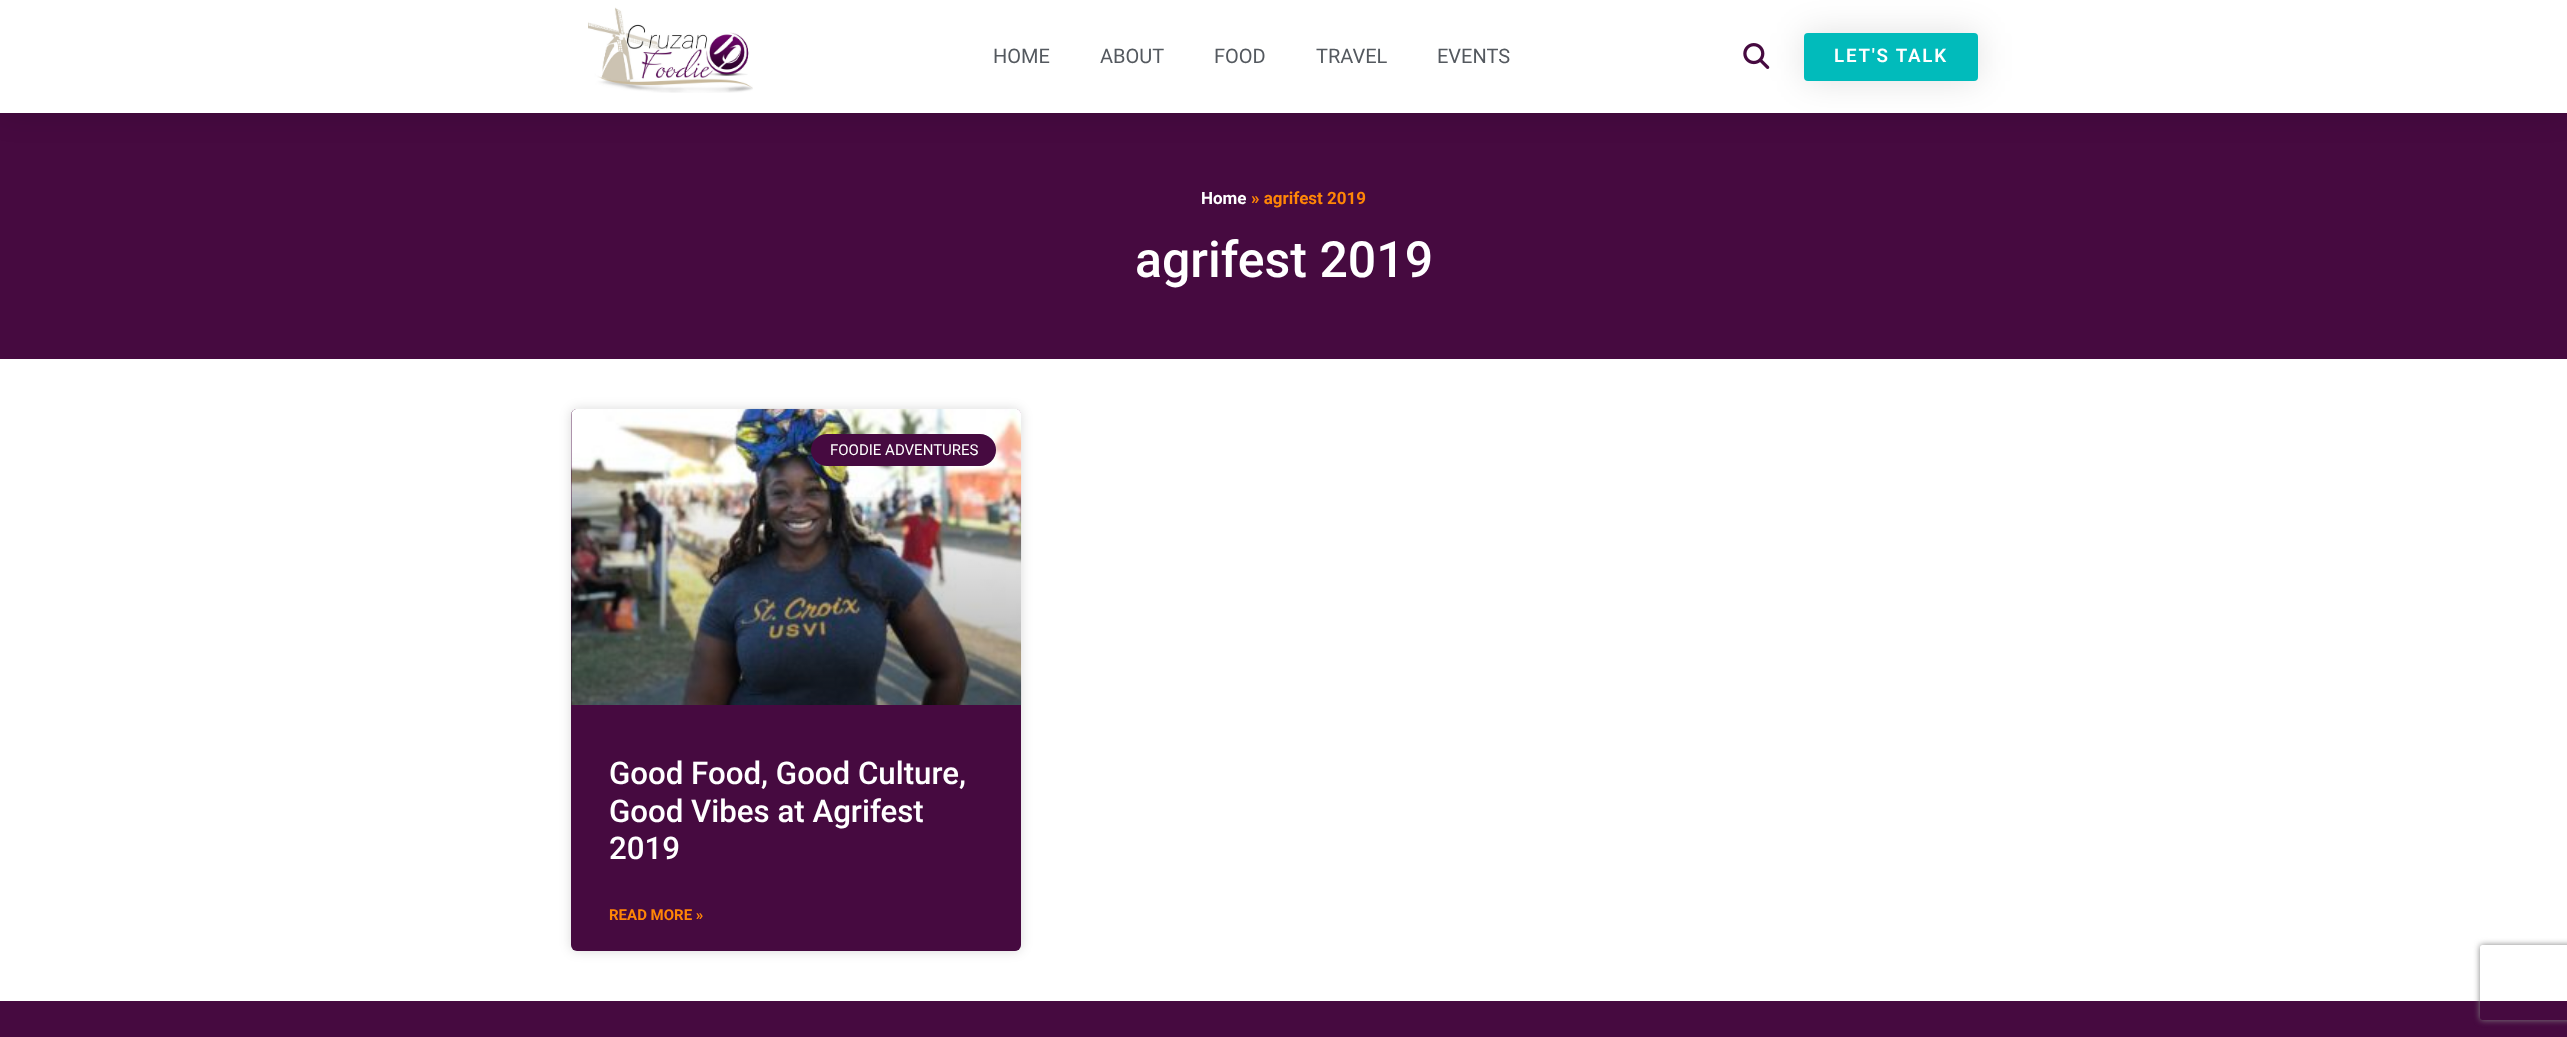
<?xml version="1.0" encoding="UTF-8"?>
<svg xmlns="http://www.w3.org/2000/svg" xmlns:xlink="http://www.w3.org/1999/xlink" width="2567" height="1037">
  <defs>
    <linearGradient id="g1" gradientUnits="userSpaceOnUse" x1="796" y1="705" x2="796" y2="409"><stop offset="0" stop-color="#000000" stop-opacity="0.35" /><stop offset="0.75" stop-color="#000000" stop-opacity="0" /></linearGradient>
    <clipPath id="clip1"><path d="M 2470 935 h 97 v 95 h -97 z m 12.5 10 h 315 c 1.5 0 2.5 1 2.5 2.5 v 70 c 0 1.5 -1 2.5 -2.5 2.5 h -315 c -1.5 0 -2.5 -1 -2.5 -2.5 v -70 c 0 -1.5 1 -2.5 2.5 -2.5 z" clip-rule="evenodd" /></clipPath>
  </defs>
  <rect width="100%" height="100%" fill="#ffffff" />
  <rect y="113" width="2567" height="246" fill="#460a40" />
  <rect width="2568" height="113" fill="#000000" fill-opacity="0.15" filter="blur(15px)" />
  <rect width="2567" height="113" fill="#ffffff" />
  <image x="588" y="7" width="165" height="86" xlink:href="image1.png" />
  <image x="1743" y="43" width="27" height="26" xlink:href="image2.png" />
  <rect x="1804" y="33" width="174" height="48" rx="4" fill="#000000" fill-opacity="0.12" filter="blur(17px)" />
  <rect x="1804" y="33" width="174" height="48" rx="4" fill="#01bbbb" />
  <rect x="571" y="409" width="450" height="542" rx="6" fill="#000000" fill-opacity="0.15" filter="blur(6px)" />
  <rect x="571" y="409" width="450" height="542" rx="6" fill="#460a40" />
  <image x="571" y="408" width="451" height="297" xlink:href="image3.png" />
  <rect x="571" y="497" width="450" height="208" fill="url(#g1)" />
  <rect x="811" y="434" width="185" height="32" rx="16" fill="#460a40" />
  <rect y="1001" width="2567" height="36" fill="#460a40" />
  <g clip-path="url(#clip1)">
    <rect x="2480" y="945" width="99" height="75" rx="2.5" fill="#808080" filter="blur(3px)" />
  </g>
  <text x="993" y="63" style="font-family: Roboto; font-size: 20px; fill: #54595f">HOME</text>
  <text x="1100" y="63" style="font-family: Roboto; font-size: 20px; fill: #54595f">ABOUT</text>
  <text x="1214" y="63" style="font-family: Roboto; font-size: 20px; fill: #54595f">FOOD</text>
  <text x="1316" y="63" style="font-family: Roboto; font-size: 20px; fill: #54595f">TRAVEL</text>
  <text x="1437" y="63" style="font-family: Roboto; font-size: 20px; fill: #54595f">EVENTS</text>
  <text x="1834" y="62" style="font-family: Roboto; font-size: 18.75px; font-weight: 600; letter-spacing: 1.75px; fill: #ffffff">LET'S TALK</text>
  <text x="1201" y="204" style="font-family: Roboto; font-size: 17px; font-weight: bold; fill: #ffffff">Home</text>
  <text x="1251" y="204" style="font-family: Roboto; font-size: 17px; font-weight: bold; fill: #ff8606">» agrifest 2019</text>
  <text x="1135" y="277" style="font-family: Roboto; font-size: 50px; font-weight: 500; fill: #ffffff">agrifest 2019</text>
  <text x="830" y="455" style="font-family: Roboto; font-size: 15px; fill: #ffffff">FOODIE ADVENTURES</text>
  <text x="609" y="784" style="font-family: Roboto; font-size: 31.25px; font-weight: 500; fill: #ffffff">Good Food, Good Culture,</text>
  <text x="609" y="822" style="font-family: Roboto; font-size: 31.25px; font-weight: 500; fill: #ffffff">Good Vibes at Agrifest</text>
  <text x="609" y="859" style="font-family: Roboto; font-size: 31.25px; font-weight: 500; fill: #ffffff">2019</text>
  <text x="609" y="920" style="font-family: Roboto; font-size: 15px; font-weight: bold; fill: #ff8606">READ MORE »</text>
</svg>
